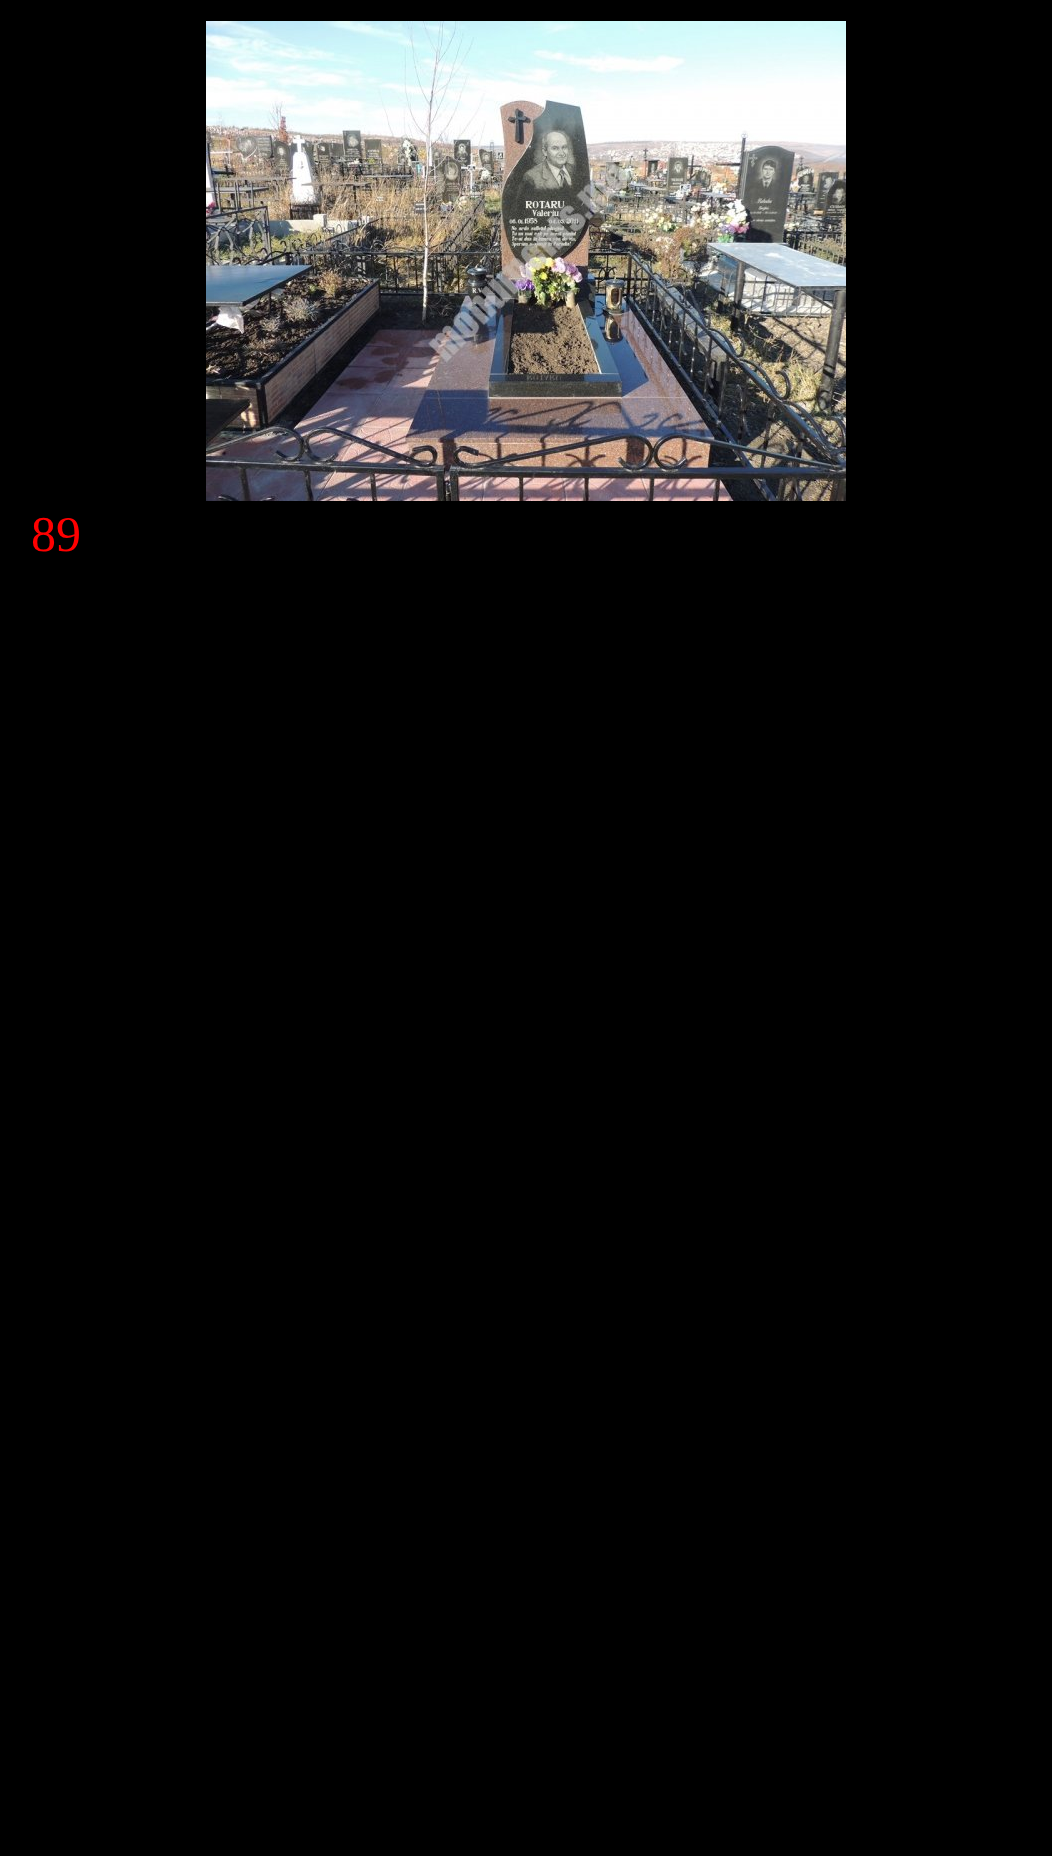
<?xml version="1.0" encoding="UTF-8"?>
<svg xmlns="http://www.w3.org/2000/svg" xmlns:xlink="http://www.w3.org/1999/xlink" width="1052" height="1856">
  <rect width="100%" height="100%" fill="#000000" />
  <image x="206" y="21" width="640" height="480" xlink:href="image1.png" />
  <text x="31" y="551" style="font-family: Liberation Serif; font-size: 50px; fill: #ff0000">89</text>
</svg>
